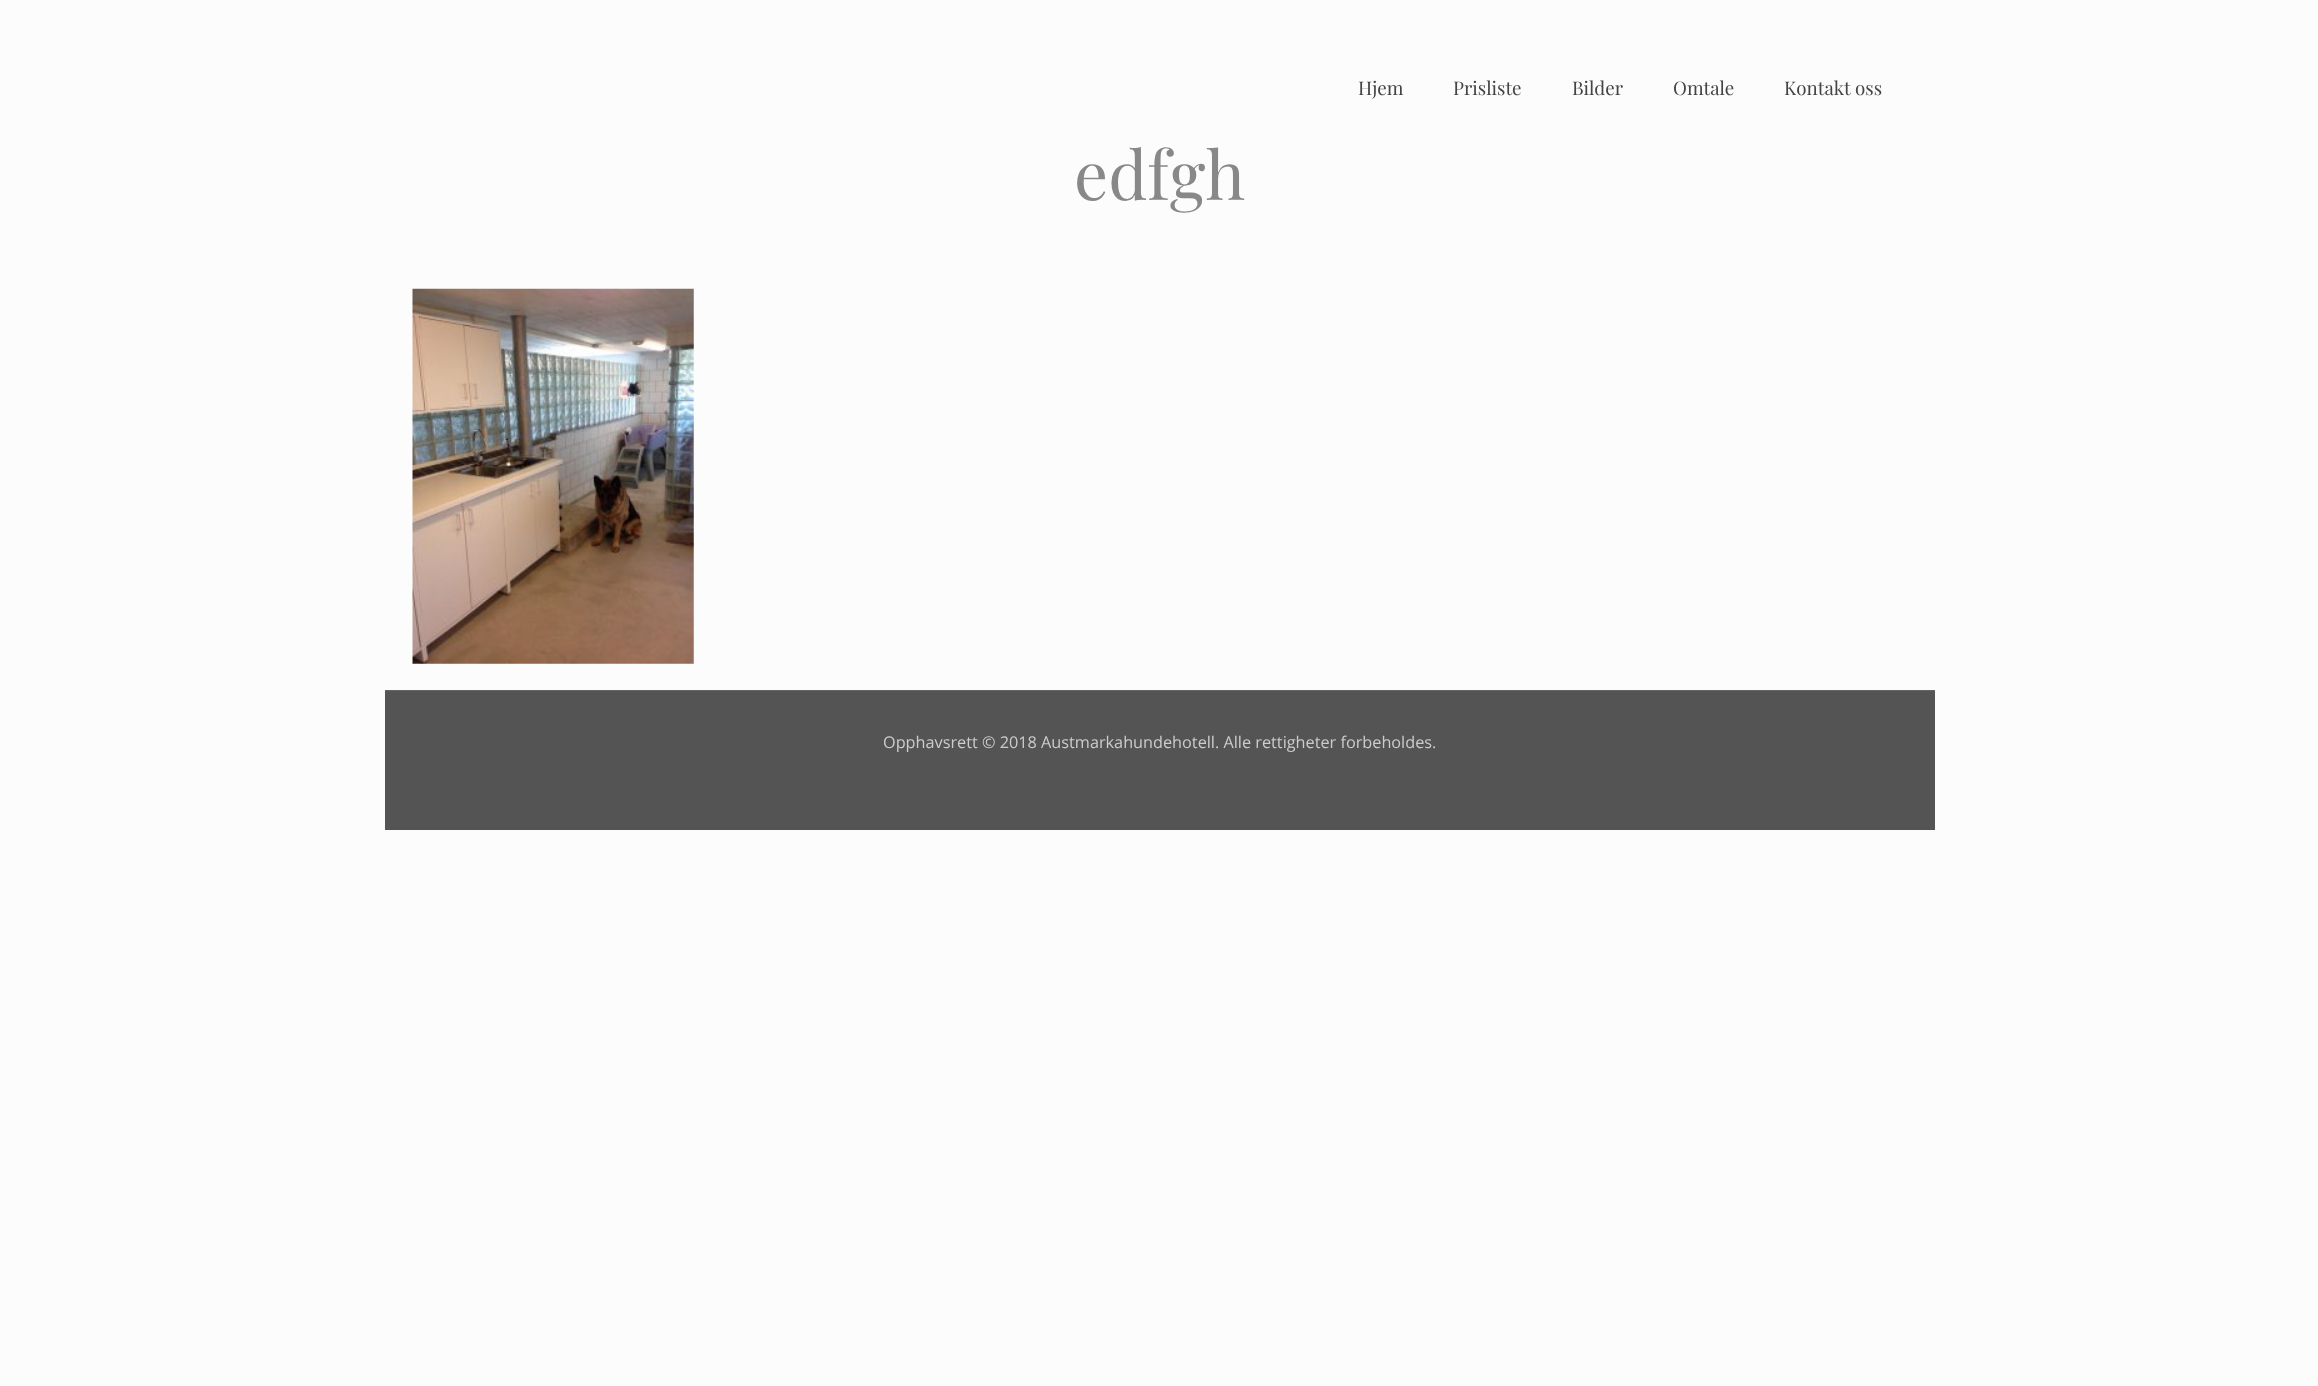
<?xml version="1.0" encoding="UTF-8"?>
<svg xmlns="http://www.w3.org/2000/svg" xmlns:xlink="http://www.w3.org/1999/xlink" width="2318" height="1386">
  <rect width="100%" height="100%" fill="#fcfcfc" />
  <image x="412" y="288" width="282" height="376" xlink:href="image1.png" />
  <rect x="385" y="691" width="1550" height="139" fill="#545454" />
  <rect x="385" y="690" width="1550" height="1" fill="#656565" />
  <text x="1358" y="95" style="font-family: Playfair Display; font-size: 18.75px; fill: #444444">Hjem</text>
  <text x="1453" y="95" style="font-family: Playfair Display; font-size: 18.75px; fill: #444444">Prisliste</text>
  <text x="1572" y="95" style="font-family: Playfair Display; font-size: 18.75px; fill: #444444">Bilder</text>
  <text x="1673" y="95" style="font-family: Playfair Display; font-size: 18.75px; fill: #444444">Omtale</text>
  <text x="1784" y="95" style="font-family: Playfair Display; font-size: 18.75px; fill: #444444">Kontakt oss</text>
  <text x="1074" y="200" style="font-family: Playfair Display; font-size: 67.5px; fill: #888888">edfgh</text>
  <text x="883" y="748" style="font-family: Open Sans; font-size: 16.25px; fill: #cccccc">Opphavsrett © 2018 Austmarkahundehotell. Alle rettigheter forbeholdes.</text>
</svg>
